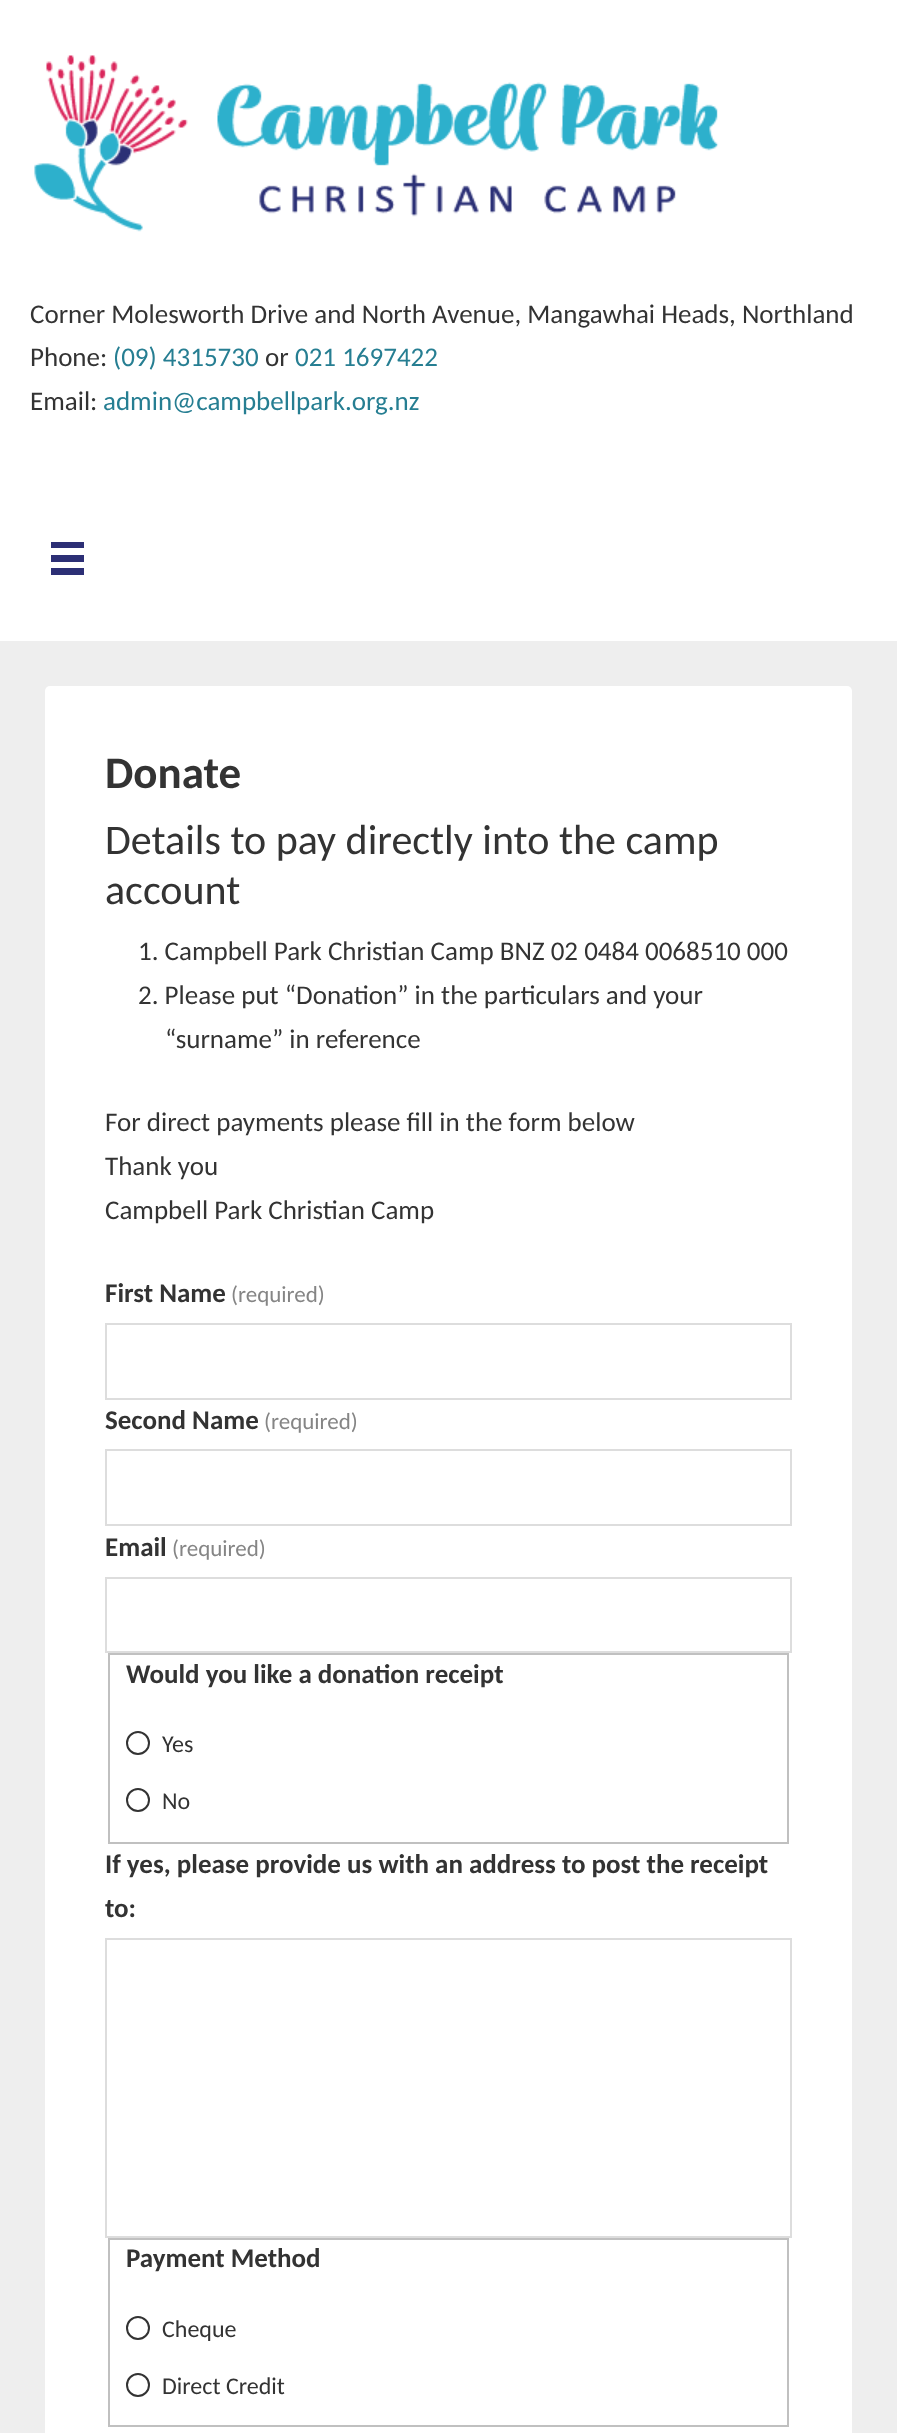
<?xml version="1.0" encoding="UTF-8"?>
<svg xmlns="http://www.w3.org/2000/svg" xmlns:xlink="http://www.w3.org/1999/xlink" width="897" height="2433">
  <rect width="100%" height="100%" fill="#eeeeee" />
  <rect width="897" height="641" fill="#ffffff" />
  <image x="34" y="55" width="685" height="177" xlink:href="image1.png" />
  <rect x="51" y="542" width="33" height="6" fill="#2c2f75" />
  <rect x="51" y="555" width="33" height="7" fill="#2c2f75" />
  <rect x="51" y="568" width="33" height="7" fill="#2c2f75" />
  <rect x="45" y="686" width="807" height="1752" rx="5" fill="#ffffff" />
  <rect x="106" y="1324" width="685" height="75" fill="none" stroke="#dddddd" stroke-width="2" />
  <rect x="106" y="1450" width="685" height="75" fill="none" stroke="#dddddd" stroke-width="2" />
  <rect x="106" y="1578" width="685" height="74" fill="none" stroke="#dddddd" stroke-width="2" />
  <rect x="109" y="1654" width="679" height="189" fill="none" stroke="#c0c0c0" stroke-width="2" />
  <circle cx="138" cy="1743" r="11" fill="none" stroke="#333333" stroke-width="2" />
  <circle cx="138" cy="1800" r="11" fill="none" stroke="#333333" stroke-width="2" />
  <rect x="106" y="1939" width="685" height="298" fill="none" stroke="#dddddd" stroke-width="2" />
  <rect x="109" y="2239" width="679" height="187" fill="none" stroke="#c0c0c0" stroke-width="2" />
  <circle cx="138" cy="2328" r="11" fill="none" stroke="#333333" stroke-width="2" />
  <circle cx="138" cy="2385" r="11" fill="none" stroke="#333333" stroke-width="2" />
  <text x="30" y="323" style="font-family: Carlito; font-size: 27px; fill: #333333">Corner Molesworth Drive and North Avenue, Mangawhai Heads, Northland</text>
  <text x="30" y="366" style="font-family: Carlito; font-size: 27px; fill: #333333">Phone:</text>
  <text x="113" y="366" style="font-family: Carlito; font-size: 27px; fill: #267e92">(09) 4315730</text>
  <text x="265" y="366" style="font-family: Carlito; font-size: 27px; fill: #333333">or</text>
  <text x="295" y="366" style="font-family: Carlito; font-size: 27px; fill: #267e92">021 1697422</text>
  <text x="30" y="410" style="font-family: Carlito; font-size: 27px; fill: #333333">Email:</text>
  <text x="103" y="410" style="font-family: Carlito; font-size: 27px; fill: #267e92">admin@campbellpark.org.nz</text>
  <text x="105" y="788" style="font-family: Carlito; font-size: 45px; font-weight: bold; fill: #333333">Donate</text>
  <text x="105" y="854" style="font-family: Carlito; font-size: 42px; fill: #333333">Details to pay directly into the camp</text>
  <text x="105" y="904" style="font-family: Carlito; font-size: 42px; fill: #333333">account</text>
  <text x="138" y="960" style="font-family: Carlito; font-size: 27px; fill: #333333">1. Campbell Park Christian Camp BNZ 02 0484 0068510 000</text>
  <text x="138" y="1004" style="font-family: Carlito; font-size: 27px; fill: #333333">2. Please put “Donation” in the particulars and your</text>
  <text x="165" y="1048" style="font-family: Carlito; font-size: 27px; fill: #333333">“surname” in reference</text>
  <text x="105" y="1131" style="font-family: Carlito; font-size: 27px; fill: #333333">For direct payments please fill in the form below</text>
  <text x="105" y="1175" style="font-family: Carlito; font-size: 27px; fill: #333333">Thank you</text>
  <text x="105" y="1219" style="font-family: Carlito; font-size: 27px; fill: #333333">Campbell Park Christian Camp</text>
  <text x="105" y="1302" style="font-family: Carlito; font-size: 27px; font-weight: bold; fill: #333333">First Name</text>
  <text x="231" y="1302" style="font-family: Carlito; font-size: 23px; fill: #858585">(required)</text>
  <text x="105" y="1429" style="font-family: Carlito; font-size: 27px; font-weight: bold; fill: #333333">Second Name</text>
  <text x="264" y="1429" style="font-family: Carlito; font-size: 23px; fill: #858585">(required)</text>
  <text x="105" y="1556" style="font-family: Carlito; font-size: 27px; font-weight: bold; fill: #333333">Email</text>
  <text x="172" y="1556" style="font-family: Carlito; font-size: 23px; fill: #858585">(required)</text>
  <text x="126" y="1683" style="font-family: Carlito; font-size: 27px; font-weight: bold; fill: #333333">Would you like a donation receipt</text>
  <text x="162" y="1752" style="font-family: Carlito; font-size: 24px; fill: #333333">Yes</text>
  <text x="162" y="1809" style="font-family: Carlito; font-size: 24px; fill: #333333">No</text>
  <text x="105" y="1873" style="font-family: Carlito; font-size: 27px; font-weight: bold; fill: #333333">If yes, please provide us with an address to post the receipt</text>
  <text x="105" y="1917" style="font-family: Carlito; font-size: 27px; font-weight: bold; fill: #333333">to:</text>
  <text x="126" y="2267" style="font-family: Carlito; font-size: 27px; font-weight: bold; fill: #333333">Payment Method</text>
  <text x="162" y="2337" style="font-family: Carlito; font-size: 24px; fill: #333333">Cheque</text>
  <text x="162" y="2394" style="font-family: Carlito; font-size: 24px; fill: #333333">Direct Credit</text>
</svg>
